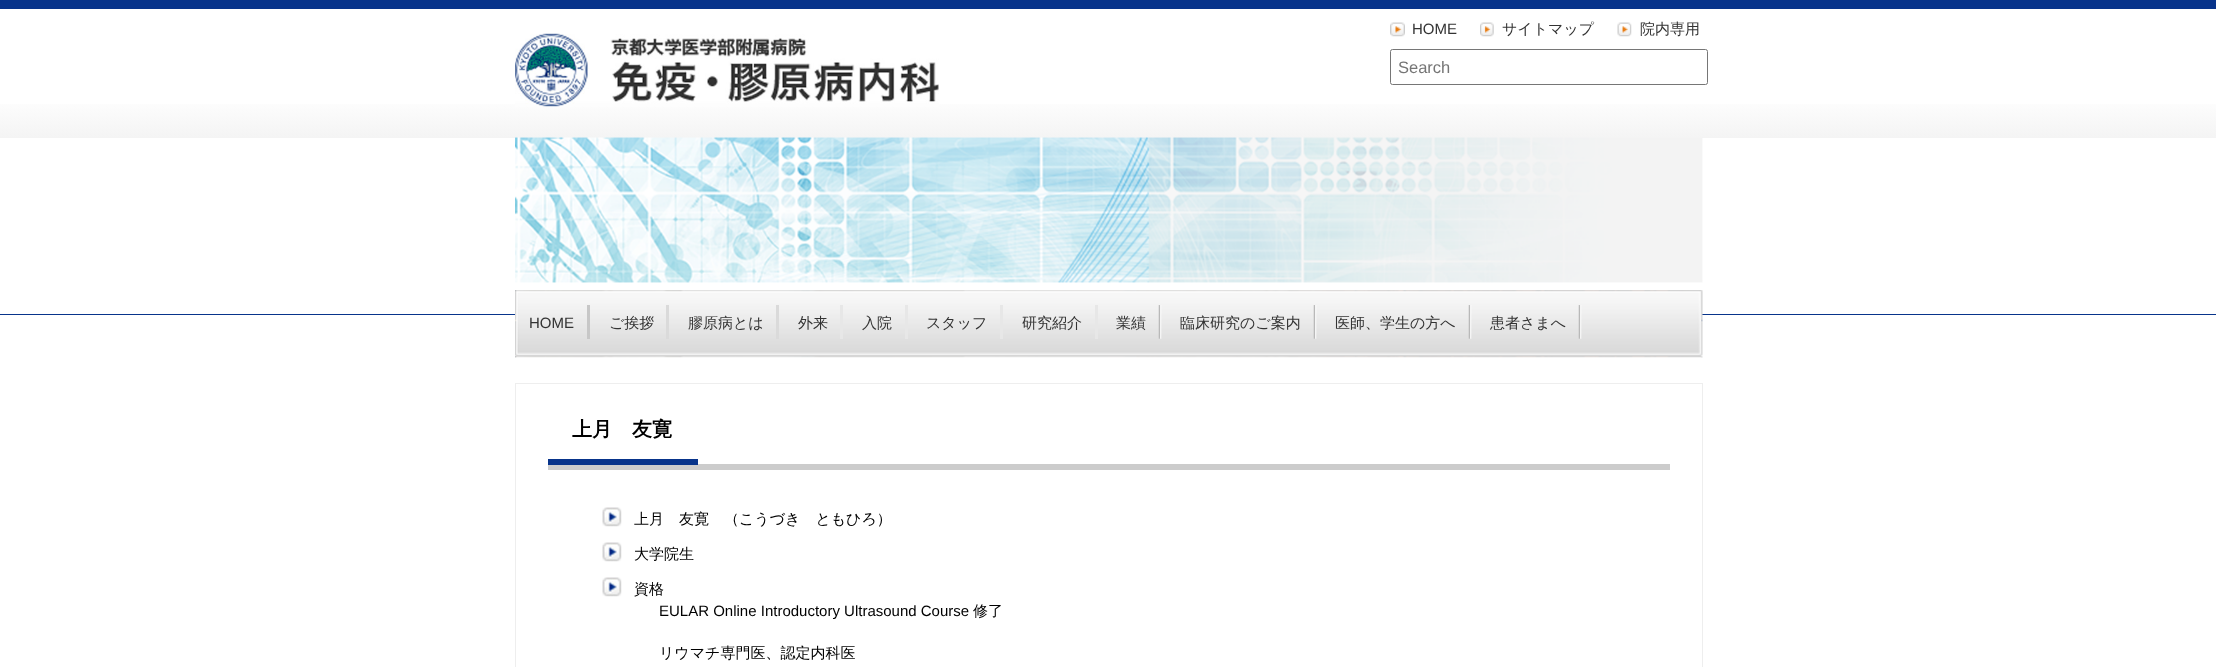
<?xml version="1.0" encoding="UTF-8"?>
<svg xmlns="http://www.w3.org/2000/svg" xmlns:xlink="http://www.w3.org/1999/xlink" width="2216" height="667">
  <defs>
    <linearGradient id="g1" gradientUnits="userSpaceOnUse" x1="1108" y1="9" x2="1108" y2="138"><stop offset="0.66" stop-color="#ffffff" /><stop offset="1" stop-color="#f4f4f4" /></linearGradient>
  </defs>
  <rect width="100%" height="100%" fill="#ffffff" />
  <rect y="104" width="2216" height="34" fill="url(#g1)" />
  <rect width="2216" height="9" fill="#08348b" />
  <image x="515" y="33" width="424" height="74" xlink:href="image1.png" />
  <image x="1390" y="22" width="15" height="15" xlink:href="image2.png" />
  <image x="1480" y="22" width="14" height="15" xlink:href="image3.png" />
  <image x="1617" y="22" width="15" height="15" xlink:href="image4.png" />
  <rect x="1390.5" y="49.5" width="317" height="35" rx="2" fill="none" stroke="#767676" />
  <rect y="314" width="2216" height="1" fill="#08348b" />
  <image x="515" y="137" width="1188" height="146" xlink:href="image5.png" />
  <image x="515" y="290" width="1188" height="68" xlink:href="image6.png" />
  <rect x="587" y="305" width="3" height="34" fill="#c7c7c7" />
  <rect x="666" y="305" width="3" height="34" fill="#dadada" />
  <rect x="776" y="305" width="3" height="34" fill="#dadada" />
  <rect x="840" y="305" width="3" height="34" fill="#e7e7e7" />
  <rect x="905" y="305" width="3" height="34" fill="#e7e7e7" />
  <rect x="1000" y="305" width="3" height="34" fill="#e7e7e7" />
  <rect x="1095" y="305" width="3" height="34" fill="#e7e7e7" />
  <image x="1158" y="305" width="4" height="34" xlink:href="image7.png" />
  <image x="1313" y="305" width="4" height="34" xlink:href="image7.png" />
  <image x="1468" y="305" width="4" height="34" xlink:href="image7.png" />
  <image x="1578" y="305" width="4" height="34" xlink:href="image7.png" />
  <rect x="515.5" y="383.5" width="1187" height="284" fill="none" stroke="#eeeeee" />
  <rect x="548" y="464" width="1122" height="6" fill="#cccccc" />
  <rect x="548" y="459" width="150" height="6" fill="#08348b" />
  <image x="602" y="507" width="20" height="20" xlink:href="image8.png" />
  <image x="602" y="542" width="20" height="20" xlink:href="image8.png" />
  <image x="602" y="577" width="20" height="20" xlink:href="image8.png" />
  <text x="1412" y="34" style="font-family: Liberation Sans; font-size: 15px; fill: #333333">HOME</text>
  <text x="1502" y="34" style="font-family: WenQuanYi Zen Hei; font-size: 15px; font-weight: 500; fill: #333333">サイトマップ</text>
  <text x="1640" y="34" style="font-family: WenQuanYi Zen Hei; font-size: 15px; font-weight: 500; fill: #333333">院内専用</text>
  <text x="1398" y="73" style="font-family: Liberation Sans; font-size: 16.5px; fill: #757575">Search</text>
  <text x="529" y="328" style="font-family: Liberation Sans; font-size: 15px; fill: #333333">HOME</text>
  <text x="609" y="328" style="font-family: WenQuanYi Zen Hei; font-size: 15px; font-weight: 500; fill: #333333">ご挨拶</text>
  <text x="688" y="328" style="font-family: WenQuanYi Zen Hei; font-size: 15px; font-weight: 500; fill: #333333">膠原病とは</text>
  <text x="798" y="328" style="font-family: WenQuanYi Zen Hei; font-size: 15px; font-weight: 500; fill: #333333">外来</text>
  <text x="862" y="328" style="font-family: WenQuanYi Zen Hei; font-size: 15px; font-weight: 500; fill: #333333">入院</text>
  <text x="926" y="328" style="font-family: WenQuanYi Zen Hei; font-size: 15px; font-weight: 500; fill: #333333">スタッフ</text>
  <text x="1022" y="328" style="font-family: WenQuanYi Zen Hei; font-size: 15px; font-weight: 500; fill: #333333">研究紹介</text>
  <text x="1116" y="328" style="font-family: WenQuanYi Zen Hei; font-size: 15px; font-weight: 500; fill: #333333">業績</text>
  <text x="1180" y="328" style="font-family: WenQuanYi Zen Hei; font-size: 15px; font-weight: 500; fill: #333333">臨床研究のご案内</text>
  <text x="1335" y="328" style="font-family: WenQuanYi Zen Hei; font-size: 15px; font-weight: 500; fill: #333333">医師、学生の方へ</text>
  <text x="1490" y="328" style="font-family: WenQuanYi Zen Hei; font-size: 15px; font-weight: 500; fill: #333333">患者さまへ</text>
  <text x="572" y="436" style="font-family: WenQuanYi Zen Hei; font-size: 20px; font-weight: bold; fill: #000000">上月　友寛</text>
  <text x="634" y="524" style="font-family: WenQuanYi Zen Hei; font-size: 15px; font-weight: 500; fill: #000000">上月　友寛　（こうづき　ともひろ）</text>
  <text x="634" y="559" style="font-family: WenQuanYi Zen Hei; font-size: 15px; font-weight: 500; fill: #000000">大学院生</text>
  <text x="634" y="594" style="font-family: WenQuanYi Zen Hei; font-size: 15px; font-weight: 500; fill: #000000">資格</text>
  <text x="659" y="616" style="font-family: Liberation Sans; font-size: 15px; fill: #000000">EULAR Online Introductory Ultrasound Course</text>
  <text x="973" y="616" style="font-family: WenQuanYi Zen Hei; font-size: 15px; font-weight: 500; fill: #000000">修了</text>
  <text x="659" y="658" style="font-family: WenQuanYi Zen Hei; font-size: 15px; font-weight: 500; fill: #000000">リウマチ専門医、認定内科医</text>
</svg>
